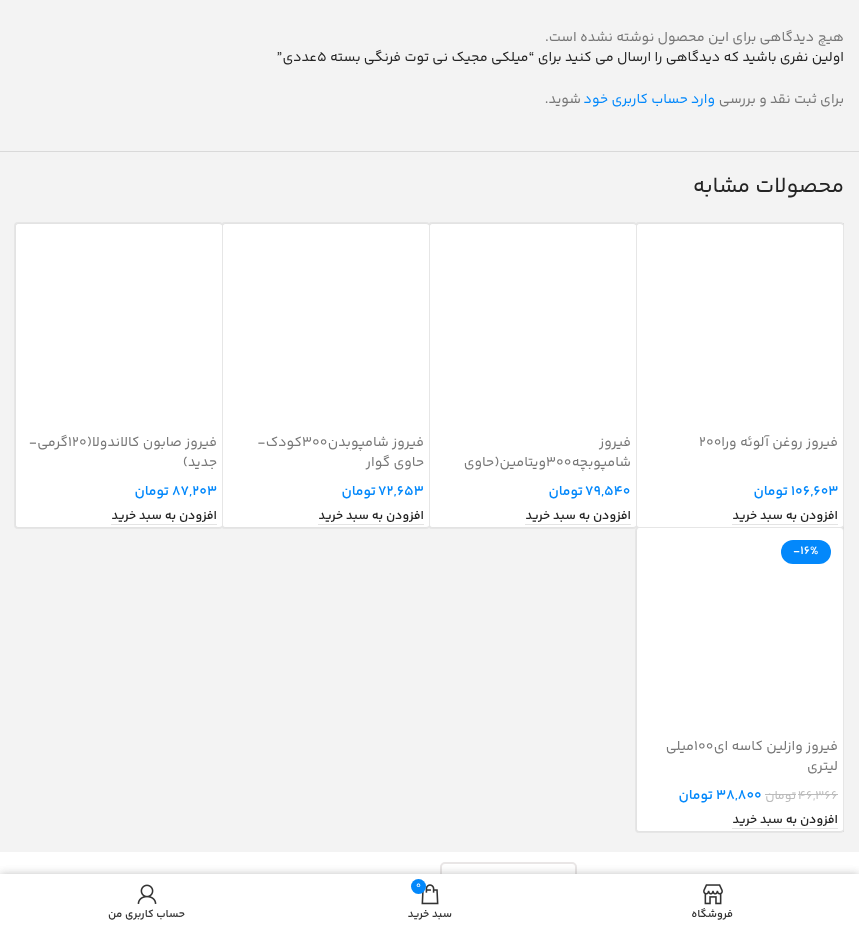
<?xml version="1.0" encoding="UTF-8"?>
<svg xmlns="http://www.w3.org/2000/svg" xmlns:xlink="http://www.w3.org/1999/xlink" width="859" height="929">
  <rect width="100%" height="100%" fill="#ffffff" />
  <rect width="859" height="852" fill="#f3f3f3" />
  <rect y="151" width="859" height="1" fill="#d9d9d9" />
  <rect x="843" y="223" width="1" height="609" fill="#d9d9d9" />
  <rect x="635" y="222" width="209" height="307" rx="4" fill="#e6e6e6" filter="blur(0.5px)" />
  <rect x="636" y="223" width="207" height="305" rx="3" fill="#ffffff" />
  <path d="M 639 223 h 201 c 2 0 3 1 3 3 v 299 c 0 2 -1 3 -3 3 h -201 c -2 0 -3 -1 -3 -3 v -299 c 0 -2 1 -3 3 -3 z m 0 1 h 201 c 2 0 3 1 3 2 v 299 c 0 1 -1 2 -3 2 h -201 c -1 0 -2 -1 -2 -2 v -299 c 0 -1 1 -2 2 -2 z" fill="#000000" fill-opacity="0.11" fill-rule="evenodd" />
  <rect x="732" y="524" width="106" height="1" fill="#e4e4e4" />
  <rect x="428" y="222" width="209" height="307" rx="4" fill="#e6e6e6" filter="blur(0.5px)" />
  <rect x="429" y="223" width="207" height="305" rx="3" fill="#ffffff" />
  <path d="M 432 223 h 201 c 2 0 3 1 3 3 v 299 c 0 2 -1 3 -3 3 h -201 c -2 0 -3 -1 -3 -3 v -299 c 0 -2 1 -3 3 -3 z m 0 1 h 201 c 2 0 3 1 3 2 v 299 c 0 1 -1 2 -3 2 h -201 c -1 0 -2 -1 -2 -2 v -299 c 0 -1 1 -2 2 -2 z" fill="#000000" fill-opacity="0.11" fill-rule="evenodd" />
  <rect x="525" y="524" width="106" height="1" fill="#e4e4e4" />
  <rect x="221" y="222" width="209" height="307" rx="4" fill="#e6e6e6" filter="blur(0.5px)" />
  <rect x="222" y="223" width="207" height="305" rx="3" fill="#ffffff" />
  <path d="M 225 223 h 201 c 2 0 3 1 3 3 v 299 c 0 2 -1 3 -3 3 h -201 c -2 0 -3 -1 -3 -3 v -299 c 0 -2 1 -3 3 -3 z m 0 1 h 201 c 2 0 3 1 3 2 v 299 c 0 1 -1 2 -3 2 h -201 c -1 0 -2 -1 -2 -2 v -299 c 0 -1 1 -2 2 -2 z" fill="#000000" fill-opacity="0.11" fill-rule="evenodd" />
  <rect x="318" y="524" width="106" height="1" fill="#e4e4e4" />
  <rect x="14" y="222" width="209" height="307" rx="4" fill="#e6e6e6" filter="blur(0.5px)" />
  <rect x="15" y="223" width="207" height="305" rx="3" fill="#ffffff" />
  <path d="M 18 223 h 201 c 2 0 3 1 3 3 v 299 c 0 2 -1 3 -3 3 h -201 c -2 0 -3 -1 -3 -3 v -299 c 0 -2 1 -3 3 -3 z m 0 1 h 201 c 2 0 3 1 3 2 v 299 c 0 1 -1 2 -3 2 h -201 c -1 0 -2 -1 -2 -2 v -299 c 0 -1 1 -2 2 -2 z" fill="#000000" fill-opacity="0.11" fill-rule="evenodd" />
  <rect x="111" y="524" width="106" height="1" fill="#e4e4e4" />
  <rect x="635" y="527" width="209" height="306" rx="4" fill="#e6e6e6" filter="blur(0.5px)" />
  <rect x="636" y="528" width="207" height="304" rx="3" fill="#ffffff" />
  <path d="M 639 528 h 201 c 2 0 3 1 3 3 v 298 c 0 2 -1 3 -3 3 h -201 c -2 0 -3 -1 -3 -3 v -298 c 0 -2 1 -3 3 -3 z m 0 0 h 201 c 2 0 3 1 3 3 v 298 c 0 1 -1 2 -3 2 h -201 c -1 0 -2 -1 -2 -2 v -298 c 0 -2 1 -3 2 -3 z" fill="#000000" fill-opacity="0.11" fill-rule="evenodd" />
  <rect x="781" y="540" width="50" height="24" rx="12" fill="#0388fb" />
  <rect x="798" y="794" width="40" height="1" fill="#bbbbbb" />
  <rect x="765" y="794" width="31" height="1" fill="#bbbbbb" />
  <rect x="732" y="828" width="106" height="1" fill="#e4e4e4" />
  <rect x="441" y="863" width="135" height="40" rx="4" fill="none" stroke="#e9e6e6" stroke-width="2" />
  <rect y="874" width="859" height="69" fill="#000000" fill-opacity="0.12" filter="blur(4.5px)" />
  <rect y="874" width="859" height="55" fill="#000000" fill-opacity="0.12" filter="blur(4.5px)" />
  <rect y="874" width="859" height="55" fill="#ffffff" />
  <image x="703" y="884" width="20" height="21" xlink:href="image1.png" />
  <image x="421" y="884" width="18" height="21" xlink:href="image2.png" />
  <circle cx="418.5" cy="886.5" r="7.5" fill="#0388fb" />
  <image x="137" y="884" width="20" height="20" xlink:href="image3.png" />
  <text x="844" y="41" style="font-family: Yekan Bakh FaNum; font-size: 14px; direction: rtl; fill: #777777">هیچ دیدگاهی برای این محصول نوشته نشده است.</text>
  <text x="844" y="61" style="font-family: Yekan Bakh FaNum; font-size: 14px; direction: rtl; fill: #242424">اولین نفری باشید که دیدگاهی را ارسال می کنید برای “میلکی مجیک نی توت فرنگی بسته</text>
  <text x="317" y="61" style="font-family: Yekan Bakh FaNum; font-size: 14px; fill: #242424">5</text>
  <text x="317" y="61" style="font-family: Yekan Bakh FaNum; font-size: 14px; direction: rtl; fill: #242424">عددی”</text>
  <text x="844" y="103" style="font-family: Yekan Bakh FaNum; font-size: 14px; direction: rtl; fill: #777777">برای ثبت نقد و بررسی</text>
  <text x="715" y="103" style="font-family: Yekan Bakh FaNum; font-size: 14px; direction: rtl; fill: #0388fb">وارد حساب کاربری خود</text>
  <text x="581" y="103" style="font-family: Yekan Bakh FaNum; font-size: 14px; direction: rtl; fill: #777777">شوید.</text>
  <text x="844" y="192" style="font-family: Yekan Bakh FaNum; font-size: 22px; direction: rtl; fill: #242424">محصولات مشابه</text>
  <text x="838" y="446" style="font-family: Yekan Bakh FaNum; font-size: 14px; direction: rtl; fill: #777777">فیروز روغن آلوئه ورا</text>
  <text x="699" y="446" style="font-family: Yekan Bakh FaNum; font-size: 14px; fill: #777777">200</text>
  <text x="791" y="495" style="font-family: Yekan Bakh FaNum; font-size: 14px; font-weight: 600; fill: #0388fb">۱۰۶,۶۰۳</text>
  <text x="788" y="495" style="font-family: Yekan Bakh FaNum; font-size: 14px; font-weight: 600; direction: rtl; fill: #0388fb">تومان</text>
  <text x="838" y="519" style="font-family: Yekan Bakh FaNum; font-size: 12.5px; font-weight: 600; direction: rtl; fill: #242424">افزودن به سبد خرید</text>
  <text x="631" y="446" style="font-family: Yekan Bakh FaNum; font-size: 14px; direction: rtl; fill: #777777">فیروز</text>
  <text x="631" y="466" style="font-family: Yekan Bakh FaNum; font-size: 14px; direction: rtl; fill: #777777">شامپوبچه</text>
  <text x="546" y="466" style="font-family: Yekan Bakh FaNum; font-size: 14px; fill: #777777">300</text>
  <text x="546" y="466" style="font-family: Yekan Bakh FaNum; font-size: 14px; direction: rtl; fill: #777777">ویتامین(حاوی</text>
  <text x="585" y="495" style="font-family: Yekan Bakh FaNum; font-size: 14px; font-weight: 600; fill: #0388fb">۷۹,۵۴۰</text>
  <text x="583" y="495" style="font-family: Yekan Bakh FaNum; font-size: 14px; font-weight: 600; direction: rtl; fill: #0388fb">تومان</text>
  <text x="631" y="519" style="font-family: Yekan Bakh FaNum; font-size: 12.5px; font-weight: 600; direction: rtl; fill: #242424">افزودن به سبد خرید</text>
  <text x="424" y="446" style="font-family: Yekan Bakh FaNum; font-size: 14px; direction: rtl; fill: #777777">فیروز شامپوبدن</text>
  <text x="302" y="446" style="font-family: Yekan Bakh FaNum; font-size: 14px; fill: #777777">300</text>
  <text x="302" y="446" style="font-family: Yekan Bakh FaNum; font-size: 14px; direction: rtl; fill: #777777">کودک-</text>
  <text x="424" y="466" style="font-family: Yekan Bakh FaNum; font-size: 14px; direction: rtl; fill: #777777">حاوی گوار</text>
  <text x="378" y="495" style="font-family: Yekan Bakh FaNum; font-size: 14px; font-weight: 600; fill: #0388fb">۷۲,۶۵۳</text>
  <text x="376" y="495" style="font-family: Yekan Bakh FaNum; font-size: 14px; font-weight: 600; direction: rtl; fill: #0388fb">تومان</text>
  <text x="424" y="519" style="font-family: Yekan Bakh FaNum; font-size: 12.5px; font-weight: 600; direction: rtl; fill: #242424">افزودن به سبد خرید</text>
  <text x="217" y="446" style="font-family: Yekan Bakh FaNum; font-size: 14px; direction: rtl; fill: #777777">فیروز صابون کالاندولا(</text>
  <text x="68" y="446" style="font-family: Yekan Bakh FaNum; font-size: 14px; fill: #777777">120</text>
  <text x="68" y="446" style="font-family: Yekan Bakh FaNum; font-size: 14px; direction: rtl; fill: #777777">گرمی-</text>
  <text x="217" y="466" style="font-family: Yekan Bakh FaNum; font-size: 14px; direction: rtl; fill: #777777">جدید)</text>
  <text x="172" y="495" style="font-family: Yekan Bakh FaNum; font-size: 14px; font-weight: 600; fill: #0388fb">۸۷,۲۰۳</text>
  <text x="169" y="495" style="font-family: Yekan Bakh FaNum; font-size: 14px; font-weight: 600; direction: rtl; fill: #0388fb">تومان</text>
  <text x="217" y="519" style="font-family: Yekan Bakh FaNum; font-size: 12.5px; font-weight: 600; direction: rtl; fill: #242424">افزودن به سبد خرید</text>
  <text x="793" y="554" style="font-family: Yekan Bakh FaNum; font-size: 12px; font-weight: 600; fill: #ffffff">-16%</text>
  <text x="838" y="750" style="font-family: Yekan Bakh FaNum; font-size: 14px; direction: rtl; fill: #777777">فیروز وازلین کاسه ای</text>
  <text x="694" y="750" style="font-family: Yekan Bakh FaNum; font-size: 14px; fill: #777777">100</text>
  <text x="694" y="750" style="font-family: Yekan Bakh FaNum; font-size: 14px; direction: rtl; fill: #777777">میلی</text>
  <text x="838" y="770" style="font-family: Yekan Bakh FaNum; font-size: 14px; direction: rtl; fill: #777777">لیتری</text>
  <text x="798" y="799" style="font-family: Yekan Bakh FaNum; font-size: 12.5px; fill: #bbbbbb">۴۶,۳۶۶</text>
  <text x="796" y="799" style="font-family: Yekan Bakh FaNum; font-size: 12.5px; direction: rtl; fill: #bbbbbb">تومان</text>
  <text x="716" y="799" style="font-family: Yekan Bakh FaNum; font-size: 14px; font-weight: 600; fill: #0388fb">۳۸,۸۰۰</text>
  <text x="713" y="799" style="font-family: Yekan Bakh FaNum; font-size: 14px; font-weight: 600; direction: rtl; fill: #0388fb">تومان</text>
  <text x="838" y="823" style="font-family: Yekan Bakh FaNum; font-size: 12.5px; font-weight: 600; direction: rtl; fill: #242424">افزودن به سبد خرید</text>
  <text x="733" y="917" style="font-family: Yekan Bakh FaNum; font-size: 11px; font-weight: 600; direction: rtl; fill: #333333">فروشگاه</text>
  <text x="416" y="888" style="font-family: Yekan Bakh FaNum; font-size: 9px; fill: #ffffff">0</text>
  <text x="452" y="917" style="font-family: Yekan Bakh FaNum; font-size: 11px; font-weight: 600; direction: rtl; fill: #333333">سبد خرید</text>
  <text x="185" y="917" style="font-family: Yekan Bakh FaNum; font-size: 11px; font-weight: 600; direction: rtl; fill: #333333">حساب کاربری من</text>
</svg>
